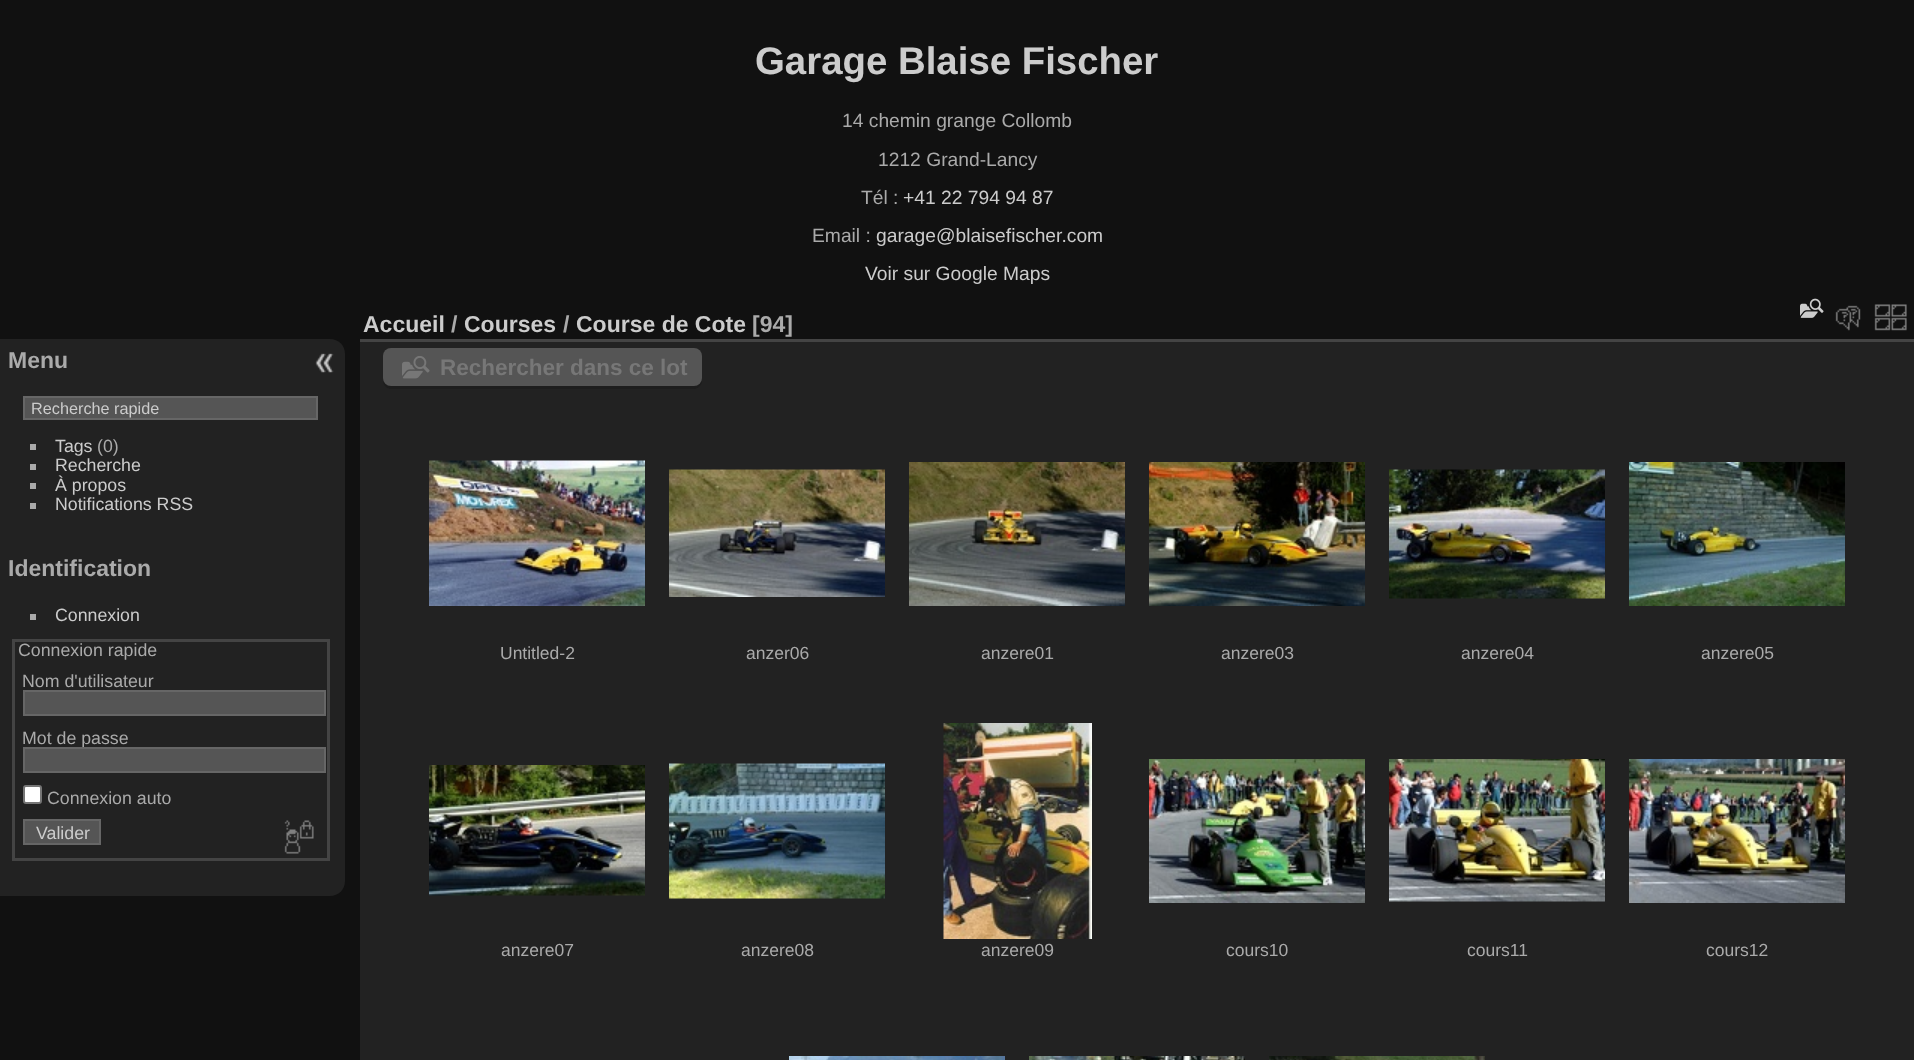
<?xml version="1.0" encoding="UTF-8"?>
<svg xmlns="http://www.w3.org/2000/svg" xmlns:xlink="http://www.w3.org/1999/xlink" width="1914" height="1060">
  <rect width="100%" height="100%" fill="#111111" />
  <path d="M 0 339 h 330 c 8.5 0 15 6.5 15 15 v 527 c 0 8.5 -6.5 15 -15 15 h -330 z" fill="#222222" />
  <rect x="24" y="397" width="293" height="22" fill="#555555" stroke="#666666" stroke-width="2" />
  <rect x="30" y="444" width="6" height="6" fill="#aaaaaa" />
  <rect x="30" y="464" width="6" height="6" fill="#aaaaaa" />
  <rect x="30" y="483" width="6" height="6" fill="#aaaaaa" />
  <rect x="30" y="503" width="6" height="6" fill="#aaaaaa" />
  <rect x="30" y="614" width="6" height="6" fill="#aaaaaa" />
  <rect x="13.5" y="640.5" width="315" height="219" fill="none" stroke="#444444" stroke-width="3" />
  <rect x="24" y="691" width="301" height="24" fill="#555555" stroke="#666666" stroke-width="2" />
  <rect x="24" y="786" width="17" height="17" rx="2" fill="#ffffff" stroke="#767676" stroke-width="2" />
  <rect x="24" y="820" width="76" height="24" fill="#555555" stroke="#666666" stroke-width="2" />
  <image x="284" y="820" width="30" height="34" xlink:href="image1.png" />
  <image x="315" y="353" width="19" height="20" xlink:href="image2.png" />
  <rect x="360" y="342" width="1554" height="718" fill="#222222" />
  <rect x="360" y="339" width="1554" height="3" fill="#444444" />
  <image x="1800" y="298" width="24" height="20" xlink:href="image3.png" />
  <image x="1835" y="305" width="26" height="26" xlink:href="image4.png" />
  <image x="1874" y="304" width="33" height="27" xlink:href="image5.png" />
  <path d="M 383 381 c 0 4 4 8 8 8 h 303 c 4 0 8 -4 8 -8 v -3 c 0 4 -3 8 -8 8 h -304 c -3 0 -6 -2 -7 -5 z" fill="#1d1d1d" />
  <rect x="383" y="348" width="319" height="38" rx="8" fill="#555555" />
  <image x="402" y="356" width="28" height="23" xlink:href="image6.png" />
  <image x="429" y="460" width="216" height="146" xlink:href="image7.png" />
  <image x="669" y="469" width="216" height="128" xlink:href="image8.png" />
  <image x="909" y="462" width="216" height="144" xlink:href="image9.png" />
  <image x="1149" y="462" width="216" height="144" xlink:href="image10.png" />
  <image x="1389" y="469" width="216" height="130" xlink:href="image11.png" />
  <image x="1629" y="462" width="216" height="144" xlink:href="image12.png" />
  <image x="429" y="765" width="216" height="131" xlink:href="image13.png" />
  <image x="669" y="763" width="216" height="136" xlink:href="image14.png" />
  <image x="943" y="723" width="149" height="216" xlink:href="image15.png" />
  <image x="1149" y="759" width="216" height="144" xlink:href="image16.png" />
  <image x="1389" y="759" width="216" height="143" xlink:href="image17.png" />
  <image x="1629" y="759" width="216" height="144" xlink:href="image18.png" />
  <image x="789" y="1056" width="216" height="4" xlink:href="image19.png" />
  <image x="1029" y="1056" width="216" height="4" xlink:href="image20.png" />
  <image x="1269" y="1056" width="216" height="4" xlink:href="image21.png" />
  <text x="755" y="74" style="font-family: Liberation Sans; font-size: 38.4px; font-weight: bold; fill: #cccccc">Garage Blaise Fischer</text>
  <text x="842" y="127" style="font-family: Liberation Sans; font-size: 19.25px; fill: #aaaaaa">14 chemin grange Collomb</text>
  <text x="878" y="166" style="font-family: Liberation Sans; font-size: 19.25px; fill: #aaaaaa">1212 Grand-Lancy</text>
  <text x="861" y="204" style="font-family: Liberation Sans; font-size: 19.25px; fill: #aaaaaa">Tél :</text>
  <text x="903" y="204" style="font-family: Liberation Sans; font-size: 19.25px; fill: #cccccc">+41 22 794 94 87</text>
  <text x="812" y="242" style="font-family: Liberation Sans; font-size: 19.25px; fill: #aaaaaa">Email :</text>
  <text x="876" y="242" style="font-family: Liberation Sans; font-size: 19.25px; fill: #cccccc">garage@blaisefischer.com</text>
  <text x="865" y="280" style="font-family: Liberation Sans; font-size: 19.25px; fill: #cccccc">Voir sur Google Maps</text>
  <text x="8" y="368" style="font-family: Liberation Sans; font-size: 23px; font-weight: bold; fill: #aaaaaa">Menu</text>
  <text x="31" y="414" style="font-family: Liberation Sans; font-size: 16.25px; fill: #cccccc">Recherche rapide</text>
  <text x="55" y="452" style="font-family: Liberation Sans; font-size: 17.75px; fill: #cccccc">Tags</text>
  <text x="97" y="452" style="font-family: Liberation Sans; font-size: 17.75px; fill: #aaaaaa">(0)</text>
  <text x="55" y="471" style="font-family: Liberation Sans; font-size: 17.75px; fill: #cccccc">Recherche</text>
  <text x="55" y="491" style="font-family: Liberation Sans; font-size: 17.75px; fill: #cccccc">À propos</text>
  <text x="55" y="510" style="font-family: Liberation Sans; font-size: 17.75px; fill: #cccccc">Notifications RSS</text>
  <text x="8" y="576" style="font-family: Liberation Sans; font-size: 23px; font-weight: bold; fill: #aaaaaa">Identification</text>
  <text x="55" y="621" style="font-family: Liberation Sans; font-size: 17.75px; fill: #cccccc">Connexion</text>
  <text x="18" y="656" style="font-family: Liberation Sans; font-size: 17.75px; fill: #aaaaaa">Connexion rapide</text>
  <text x="22" y="687" style="font-family: Liberation Sans; font-size: 17.75px; fill: #aaaaaa">Nom d'utilisateur</text>
  <text x="22" y="744" style="font-family: Liberation Sans; font-size: 17.75px; fill: #aaaaaa">Mot de passe</text>
  <rect x="24" y="748" width="301" height="24" fill="#555555" stroke="#666666" stroke-width="2" />
  <text x="47" y="804" style="font-family: Liberation Sans; font-size: 17.75px; fill: #aaaaaa">Connexion auto</text>
  <text x="36" y="839" style="font-family: Liberation Sans; font-size: 17.75px; fill: #cccccc">Valider</text>
  <text x="363" y="332" style="font-family: Liberation Sans; font-size: 23px; font-weight: bold; fill: #cccccc">Accueil</text>
  <text x="451" y="332" style="font-family: Liberation Sans; font-size: 23px; font-weight: bold; fill: #aaaaaa">/</text>
  <text x="464" y="332" style="font-family: Liberation Sans; font-size: 23px; font-weight: bold; fill: #cccccc">Courses</text>
  <text x="563" y="332" style="font-family: Liberation Sans; font-size: 23px; font-weight: bold; fill: #aaaaaa">/</text>
  <text x="576" y="332" style="font-family: Liberation Sans; font-size: 23px; font-weight: bold; fill: #cccccc">Course de Cote</text>
  <text x="752" y="332" style="font-family: Liberation Sans; font-size: 23px; font-weight: bold; fill: #aaaaaa">[94]</text>
  <text x="440" y="375" style="font-family: Liberation Sans; font-size: 22.5px; font-weight: bold; fill: #777777">Rechercher dans ce lot</text>
  <text x="500" y="659" style="font-family: Liberation Sans; font-size: 17.5px; fill: #aaaaaa">Untitled-2</text>
  <text x="746" y="659" style="font-family: Liberation Sans; font-size: 17.5px; fill: #aaaaaa">anzer06</text>
  <text x="981" y="659" style="font-family: Liberation Sans; font-size: 17.5px; fill: #aaaaaa">anzere01</text>
  <text x="1221" y="659" style="font-family: Liberation Sans; font-size: 17.5px; fill: #aaaaaa">anzere03</text>
  <text x="1461" y="659" style="font-family: Liberation Sans; font-size: 17.5px; fill: #aaaaaa">anzere04</text>
  <text x="1701" y="659" style="font-family: Liberation Sans; font-size: 17.5px; fill: #aaaaaa">anzere05</text>
  <text x="501" y="956" style="font-family: Liberation Sans; font-size: 17.5px; fill: #aaaaaa">anzere07</text>
  <text x="741" y="956" style="font-family: Liberation Sans; font-size: 17.5px; fill: #aaaaaa">anzere08</text>
  <text x="981" y="956" style="font-family: Liberation Sans; font-size: 17.5px; fill: #aaaaaa">anzere09</text>
  <text x="1226" y="956" style="font-family: Liberation Sans; font-size: 17.5px; fill: #aaaaaa">cours10</text>
  <text x="1467" y="956" style="font-family: Liberation Sans; font-size: 17.5px; fill: #aaaaaa">cours11</text>
  <text x="1706" y="956" style="font-family: Liberation Sans; font-size: 17.5px; fill: #aaaaaa">cours12</text>
</svg>
